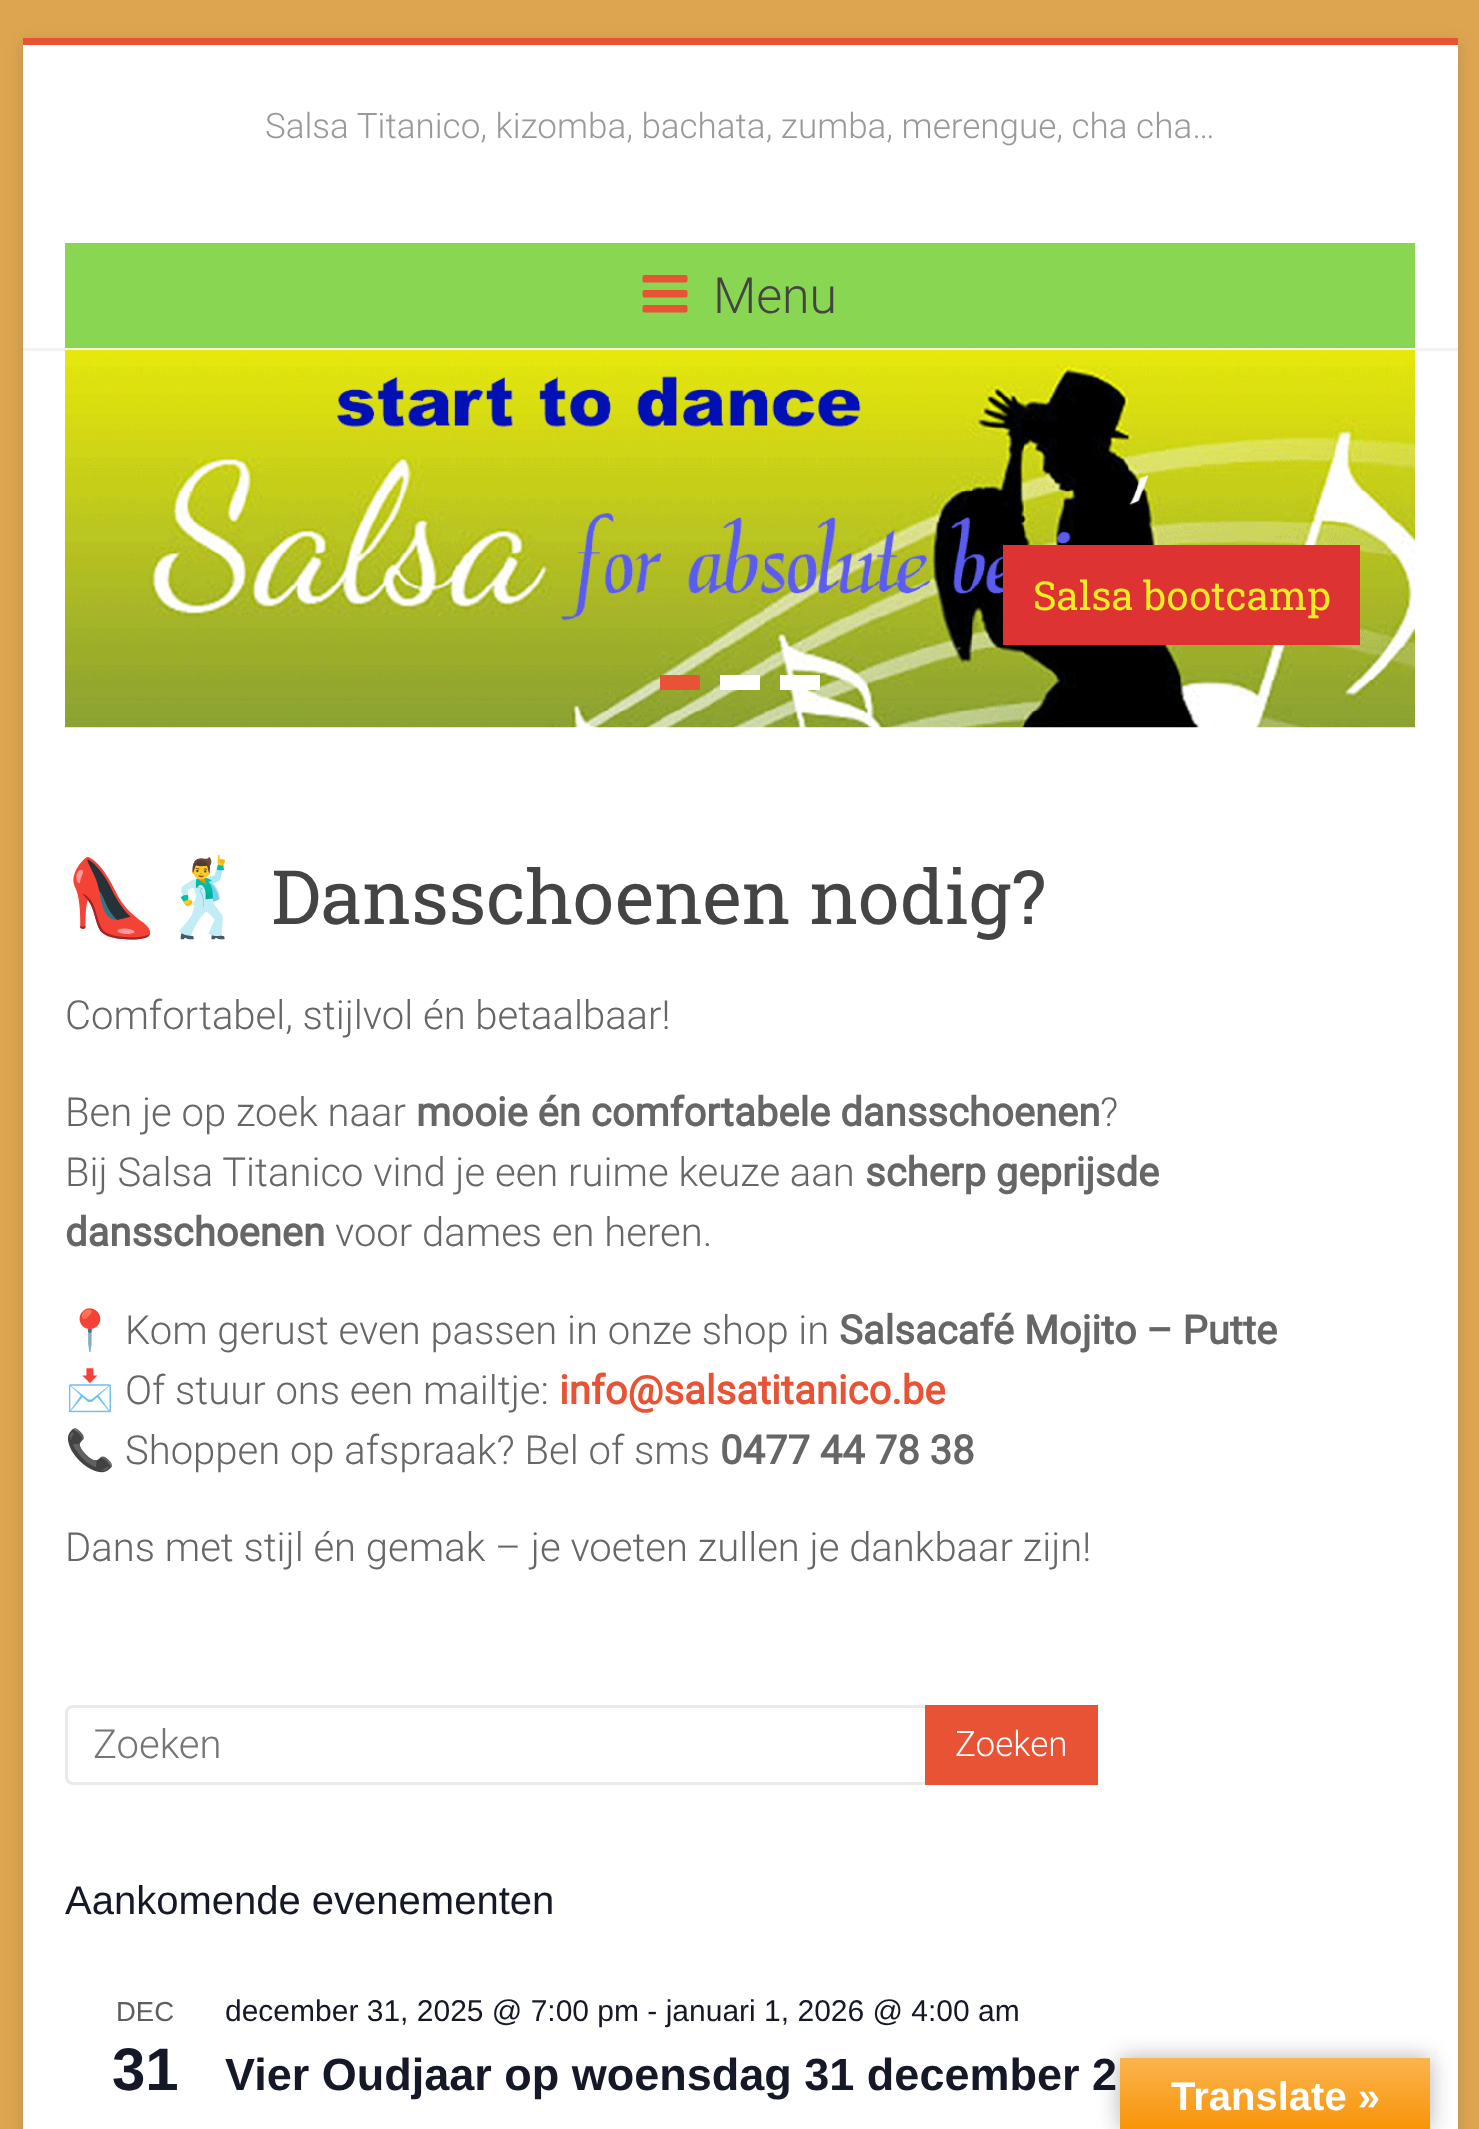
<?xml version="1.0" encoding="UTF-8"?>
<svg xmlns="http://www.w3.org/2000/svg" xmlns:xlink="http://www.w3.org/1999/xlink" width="1479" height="2129">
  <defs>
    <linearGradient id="g1" gradientUnits="userSpaceOnUse" x1="1275" y1="2058" x2="1275" y2="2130"><stop offset="0" stop-color="#fbb450" /><stop offset="1" stop-color="#f89406" /></linearGradient>
  </defs>
  <rect width="100%" height="100%" fill="#dda54f" />
  <rect x="23" y="43" width="1435" height="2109" fill="#646464" fill-opacity="0.3" filter="blur(7.5px)" />
  <rect x="23" y="351" width="1435" height="1778" fill="#ffffff" />
  <rect x="23" y="38" width="1435" height="7" fill="#e85335" />
  <rect x="23" y="45" width="1435" height="303" fill="#ffffff" />
  <rect x="23" y="348" width="1435" height="3" fill="#f2f2f2" />
  <rect x="65" y="243" width="1350" height="105" fill="#89d653" />
  <image x="642" y="275" width="46" height="38" xlink:href="image1.png" />
  <image x="65" y="350" width="1350" height="378" xlink:href="image2.png" />
  <rect x="1003" y="545" width="357" height="100" fill="#dd3333" />
  <rect x="660" y="675" width="40" height="15" fill="#e85335" />
  <rect x="720" y="675" width="40" height="15" fill="#ffffff" />
  <rect x="780" y="675" width="40" height="15" fill="#ffffff" />
  <rect x="66.5" y="1706.5" width="862" height="77" rx="6.5" fill="none" stroke="#eaeaea" stroke-width="3" />
  <rect x="925" y="1705" width="173" height="80" fill="#e85335" />
  <rect x="1120" y="2058" width="310" height="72" fill="#000000" fill-opacity="0.3" filter="blur(11px)" />
  <rect x="1120" y="2058" width="310" height="71" fill="url(#g1)" />
  <text x="265" y="138" style="font-family: Roboto; font-size: 35px; font-weight: 300; fill: #999999">Salsa Titanico, kizomba, bachata, zumba, merengue, cha cha…</text>
  <text x="713" y="313" style="font-family: Roboto; font-size: 50px; font-weight: 300; fill: #444444">Menu</text>
  <text x="1033" y="610" style="font-family: Roboto Slab; font-size: 40px; fill: #eeee22">Salsa bootcamp</text>
  <text x="65" y="924" style="font-family: Noto Color Emoji; font-size: 75px; fill: #444444">👠🕺</text>
  <text x="271" y="924" style="font-family: Roboto Slab; font-size: 75px; fill: #444444">Dansschoenen nodig?</text>
  <text x="65" y="1029" style="font-family: Roboto; font-size: 40px; font-weight: 300; fill: #666666">Comfortabel, stijlvol én betaalbaar!</text>
  <text x="65" y="1126" style="font-family: Roboto; font-size: 40px; font-weight: 300; fill: #666666">Ben je op zoek naar</text>
  <text x="416" y="1126" style="font-family: Roboto; font-size: 40px; font-weight: bold; fill: #666666">mooie én comfortabele dansschoenen</text>
  <text x="1100" y="1126" style="font-family: Roboto; font-size: 40px; font-weight: 300; fill: #666666">?</text>
  <text x="65" y="1186" style="font-family: Roboto; font-size: 40px; font-weight: 300; fill: #666666">Bij Salsa Titanico vind je een ruime keuze aan</text>
  <text x="865" y="1186" style="font-family: Roboto; font-size: 40px; font-weight: bold; fill: #666666">scherp geprijsde</text>
  <text x="65" y="1246" style="font-family: Roboto; font-size: 40px; font-weight: bold; fill: #666666">dansschoenen</text>
  <text x="335" y="1246" style="font-family: Roboto; font-size: 40px; font-weight: 300; fill: #666666">voor dames en heren.</text>
  <text x="65" y="1344" style="font-family: Noto Color Emoji; font-size: 40px; fill: #666666">📍</text>
  <text x="125" y="1344" style="font-family: Roboto; font-size: 40px; font-weight: 300; fill: #666666">Kom gerust even passen in onze shop in</text>
  <text x="839" y="1344" style="font-family: Roboto; font-size: 40px; font-weight: bold; fill: #666666">Salsacafé Mojito – Putte</text>
  <text x="65" y="1404" style="font-family: Noto Color Emoji; font-size: 40px; fill: #666666">📩</text>
  <text x="125" y="1404" style="font-family: Roboto; font-size: 40px; font-weight: 300; fill: #666666">Of stuur ons een mailtje:</text>
  <text x="559" y="1404" style="font-family: Roboto; font-size: 40px; font-weight: bold; fill: #e85335">info@salsatitanico.be</text>
  <text x="65" y="1464" style="font-family: Noto Color Emoji; font-size: 40px; fill: #666666">📞</text>
  <text x="125" y="1464" style="font-family: Roboto; font-size: 40px; font-weight: 300; fill: #666666">Shoppen op afspraak? Bel of sms</text>
  <text x="720" y="1464" style="font-family: Roboto; font-size: 40px; font-weight: bold; fill: #666666">0477 44 78 38</text>
  <text x="65" y="1561" style="font-family: Roboto; font-size: 40px; font-weight: 300; fill: #666666">Dans met stijl én gemak – je voeten zullen je dankbaar zijn!</text>
  <text x="93" y="1758" style="font-family: Roboto; font-size: 40px; font-weight: 300; fill: #757575">Zoeken</text>
  <text x="955" y="1756" style="font-family: Roboto; font-size: 35px; font-weight: 300; fill: #ffffff">Zoeken</text>
  <text x="65" y="1914" style="font-family: Liberation Sans; font-size: 40px; fill: #141827">Aankomende evenementen</text>
  <text x="116" y="2021" style="font-family: Liberation Sans; font-size: 27.5px; fill: #5d5d5d">DEC</text>
  <text x="112" y="2090" style="font-family: Liberation Sans; font-size: 60px; font-weight: bold; fill: #141827">31</text>
  <text x="225" y="2021" style="font-family: Liberation Sans; font-size: 30px; fill: #141827">december 31, 2025 @ 7:00 pm - januari 1, 2026 @ 4:00 am</text>
  <text x="225" y="2090" style="font-family: Liberation Sans; font-size: 45px; font-weight: bold; fill: #141827">Vier Oudjaar op woensdag 31 december 2</text>
  <text x="1171" y="2110" style="font-family: Liberation Sans; font-size: 40px; font-weight: bold; fill: #ffffff">Translate »</text>
</svg>
